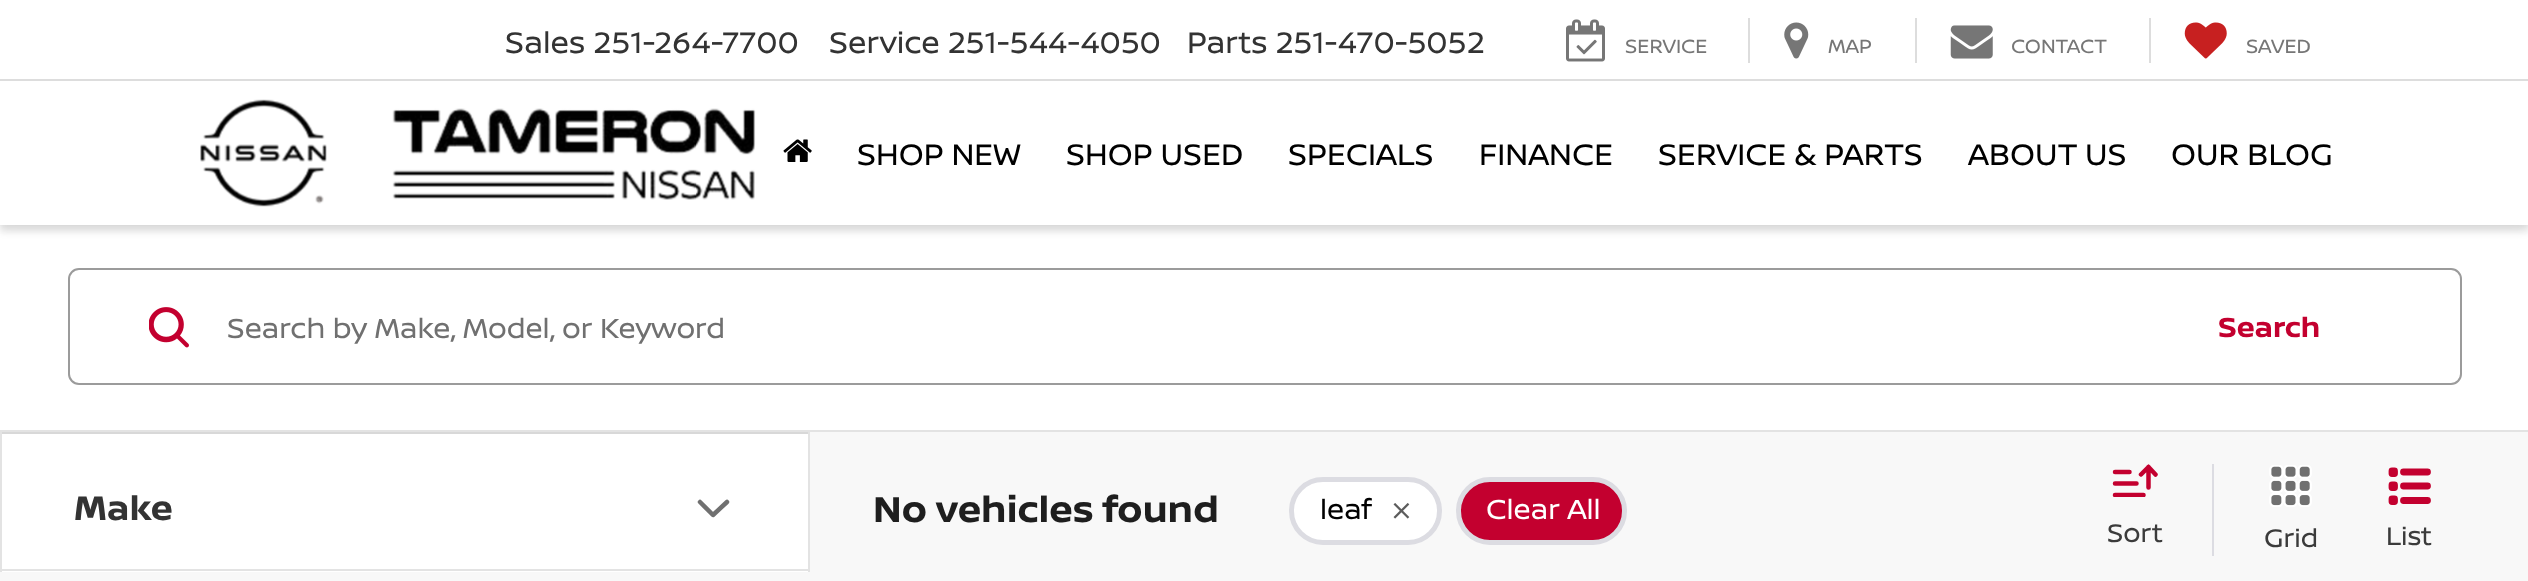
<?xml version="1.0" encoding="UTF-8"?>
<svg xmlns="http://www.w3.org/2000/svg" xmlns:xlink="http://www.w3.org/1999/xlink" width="2528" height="581">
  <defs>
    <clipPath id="clip1"><rect x="2111" y="464" width="49" height="33" /></clipPath>
  </defs>
  <rect width="100%" height="100%" fill="#f8f8f8" />
  <rect y="225" width="2528" height="205" fill="#ffffff" />
  <rect y="-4" width="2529" height="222" fill="#000000" fill-opacity="0.3" filter="blur(8px)" />
  <rect width="2528" height="79" fill="#ffffff" />
  <rect y="79" width="2528" height="2" fill="#dddddd" />
  <image x="1566" y="19" width="39" height="43" xlink:href="image1.png" />
  <rect x="1748" y="18" width="2" height="45" fill="#dddddd" />
  <image x="1784" y="22" width="25" height="37" xlink:href="image2.png" />
  <rect x="1915" y="18" width="2" height="45" fill="#dddddd" />
  <image x="1950" y="25" width="43" height="34" xlink:href="image3.png" />
  <rect x="2149" y="18" width="2" height="45" fill="#dddddd" />
  <image x="2184" y="22" width="43" height="37" xlink:href="image4.png" />
  <rect y="88" width="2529" height="144" fill="#000000" fill-opacity="0.1" filter="blur(3.5px)" />
  <rect y="81" width="2528" height="144" fill="#ffffff" />
  <image x="200" y="99" width="127" height="108" xlink:href="image5.png" />
  <image x="392" y="108" width="364" height="92" xlink:href="image6.png" />
  <image x="783" y="139" width="29" height="23" xlink:href="image7.png" />
  <rect x="2" y="434" width="806" height="138" fill="#ffffff" />
  <rect x="808" y="432" width="2" height="140" fill="#e3e3e3" />
  <rect y="569" width="810" height="2" fill="#e3e3e3" />
  <rect y="432" width="2" height="140" fill="#e3e3e3" />
  <rect x="2" y="432" width="806" height="2" fill="#d8d8d8" />
  <path d="M 700 502 l 13 13 l 14 -13" fill="none" stroke="#707070" stroke-width="4.5" stroke-linecap="round" stroke-linejoin="round" />
  <rect y="430" width="2528" height="2" fill="#e3e3e3" />
  <rect x="69" y="269" width="2392" height="115" rx="10" fill="none" stroke="#9b9b9b" stroke-width="2" />
  <image x="149" y="307" width="40" height="41" xlink:href="image8.png" />
  <rect x="1291.5" y="479.5" width="148" height="63" rx="31.5" fill="#ffffff" stroke="#dcdce2" stroke-width="5" />
  <image x="1393" y="503" width="17" height="16" xlink:href="image9.png" />
  <rect x="1458.5" y="479.5" width="166" height="63" rx="31.5" fill="#c3002f" stroke="#dcdce2" stroke-width="5" />
  <g clip-path="url(#clip1)">
    <path d="M 2115 495 h 28.5 m -28.5 -11.5 h 21.5 m -21.5 -11.5 h 14.5 m 19 15.5 v -20.5 m 0 0 l 7 7.5 m -7 -7.5 l -7.5 7.5" fill="none" stroke="#c3002f" stroke-width="4.5" stroke-linecap="round" stroke-linejoin="round" />
  </g>
  <rect x="2212" y="464" width="2" height="92" fill="#dcdce2" />
  <image x="2269" y="465" width="43" height="42" xlink:href="image10.png" />
  <path d="M 2403.5 472 h 24 m -24 14 h 24 m -24 14.5 h 24 m -35.5 -27 h 2.5 v -2.5 h -2.5 z m 0 14 h 2.5 v -2.5 h -2.5 z m 0 14 h 2.5 v -2.5 h -2.5 z" fill="none" stroke="#c3002f" stroke-width="6.8" stroke-linecap="round" stroke-linejoin="round" />
  <text x="505" y="53" style="font-family: 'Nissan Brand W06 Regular'; font-size: 31.5px; fill: #333333">Sales 251-264-7700</text>
  <text x="829" y="53" style="font-family: 'Nissan Brand W06 Regular'; font-size: 31.5px; fill: #333333">Service 251-544-4050</text>
  <text x="1187" y="53" style="font-family: 'Nissan Brand W06 Regular'; font-size: 31.5px; fill: #333333">Parts 251-470-5052</text>
  <text x="1625" y="53" style="font-family: 'Nissan Brand W06 Regular'; font-size: 20.25px; fill: #767676">SERVICE</text>
  <text x="1828" y="53" style="font-family: 'Nissan Brand W06 Regular'; font-size: 20.25px; fill: #767676">MAP</text>
  <text x="2011" y="53" style="font-family: 'Nissan Brand W06 Regular'; font-size: 20.25px; fill: #767676">CONTACT</text>
  <text x="2246" y="53" style="font-family: 'Nissan Brand W06 Regular'; font-size: 20.25px; fill: #767676">SAVED</text>
  <text x="857" y="165" style="font-family: 'Nissan Brand W06 Regular'; font-size: 31.5px; fill: #000000">SHOP NEW</text>
  <text x="1066" y="165" style="font-family: 'Nissan Brand W06 Regular'; font-size: 31.5px; fill: #000000">SHOP USED</text>
  <text x="1288" y="165" style="font-family: 'Nissan Brand W06 Regular'; font-size: 31.5px; fill: #000000">SPECIALS</text>
  <text x="1479" y="165" style="font-family: 'Nissan Brand W06 Regular'; font-size: 31.5px; fill: #000000">FINANCE</text>
  <text x="1658" y="165" style="font-family: 'Nissan Brand W06 Regular'; font-size: 31.5px; fill: #000000">SERVICE &amp; PARTS</text>
  <text x="1968" y="165" style="font-family: 'Nissan Brand W06 Regular'; font-size: 31.5px; fill: #000000">ABOUT US</text>
  <text x="2171" y="165" style="font-family: 'Nissan Brand W06 Regular'; font-size: 31.5px; fill: #000000">OUR BLOG</text>
  <text x="74" y="520" style="font-family: 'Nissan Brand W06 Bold'; font-size: 36px; font-weight: bold; fill: #333333">Make</text>
  <text x="227" y="338" style="font-family: 'Nissan Brand W06 Regular'; font-size: 29.25px; fill: #707070">Search by Make, Model, or Keyword</text>
  <text x="2218" y="337" style="font-family: 'Nissan Brand W06 Bold'; font-size: 29.25px; font-weight: bold; fill: #c3002f">Search</text>
  <text x="873" y="522" style="font-family: 'Nissan Brand W06 Bold'; font-size: 38.25px; font-weight: bold; fill: #1e1e1e">No vehicles found</text>
  <text x="1320" y="519" style="font-family: 'Nissan Brand W06 Regular'; font-size: 29.25px; fill: #000000">leaf</text>
  <text x="1486" y="519" style="font-family: 'Nissan Brand W06 Regular'; font-size: 29.25px; fill: #ffffff">Clear All</text>
  <text x="2107" y="542" style="font-family: 'Nissan Brand W06 Regular'; font-size: 27px; fill: #3b3b3b">Sort</text>
  <text x="2264" y="547" style="font-family: 'Nissan Brand W06 Regular'; font-size: 27px; fill: #3b3b3b">Grid</text>
  <text x="2386" y="545" style="font-family: 'Nissan Brand W06 Regular'; font-size: 27px; fill: #3b3b3b">List</text>
</svg>
